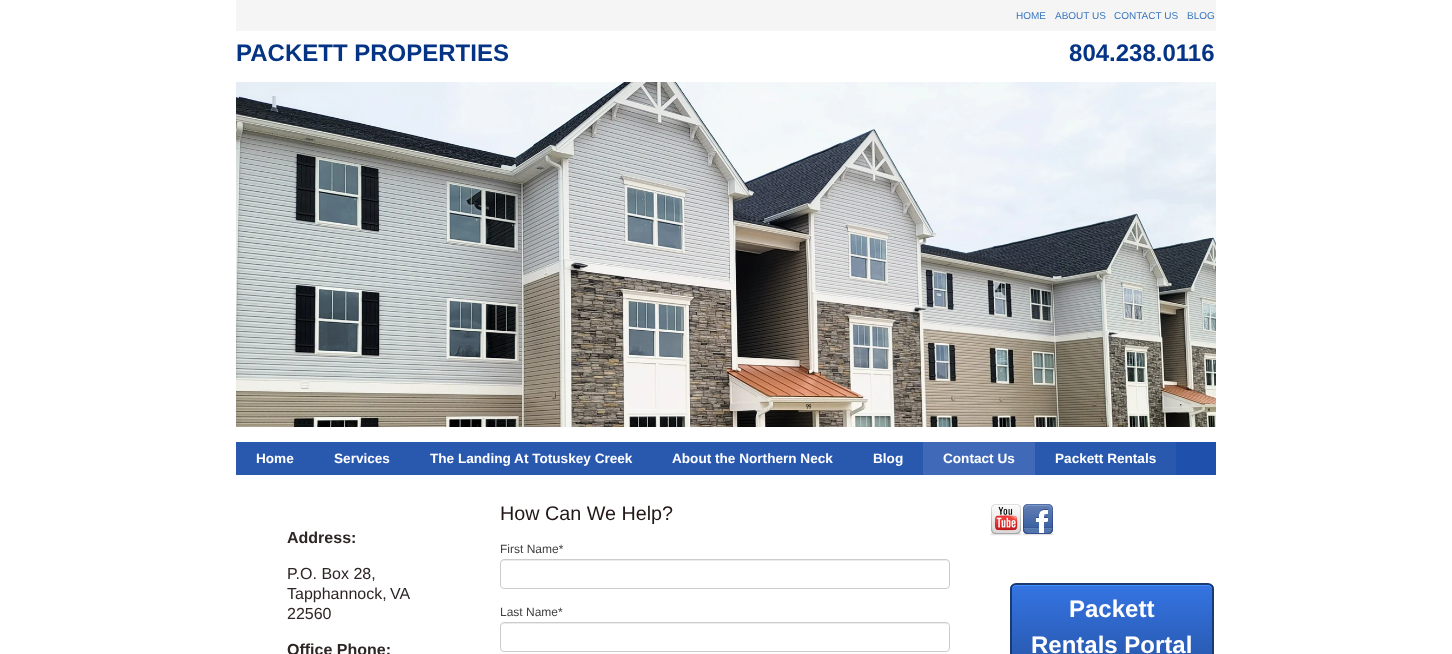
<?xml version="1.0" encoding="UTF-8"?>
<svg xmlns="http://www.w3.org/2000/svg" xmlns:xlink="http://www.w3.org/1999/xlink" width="1452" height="654">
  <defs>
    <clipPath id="clip1"><rect x="1010" y="583" width="204" height="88" rx="6" /></clipPath>
    <linearGradient id="g1" gradientUnits="userSpaceOnUse" x1="1112" y1="585" x2="1112" y2="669"><stop offset="0" stop-color="#3574e3" /><stop offset="1" stop-color="#2757aa" /></linearGradient>
  </defs>
  <rect width="100%" height="100%" fill="#ffffff" />
  <rect x="236" width="980" height="31" fill="#f5f5f5" />
  <image x="236" y="82" width="980" height="345" xlink:href="image1.png" />
  <rect x="1176" y="442" width="40" height="33" fill="#1f51ac" />
  <rect x="236" y="442" width="174" height="33" fill="#2958af" />
  <rect x="410" y="442" width="513" height="33" fill="#2958af" />
  <rect x="923" y="442" width="112" height="33" fill="#406ab8" />
  <rect x="1035" y="442" width="141" height="33" fill="#2958af" />
  <path d="M 504 561 h 442 c 2 0 3 1 3 3 c 0 -2 -1 -4 -3 -4 h -443 l -2 2 v 2 c 0 -2 1 -3 3 -3 z" fill="#ececec" />
  <rect x="500.5" y="559.5" width="449" height="29" rx="3.5" fill="none" stroke="#cccccc" />
  <path d="M 504 624 h 442 c 2 0 3 1 3 3 c 0 -2 -1 -4 -3 -4 h -443 l -2 2 v 2 c 0 -2 1 -3 3 -3 z" fill="#ececec" />
  <rect x="500.5" y="622.5" width="449" height="29" rx="3.5" fill="none" stroke="#cccccc" />
  <image x="990" y="504" width="32" height="32" xlink:href="image2.png" />
  <image x="1022" y="504" width="32" height="32" xlink:href="image3.png" />
  <g clip-path="url(#clip1)">
    <rect x="1010" y="585" width="204" height="69" fill="url(#g1)" />
  </g>
  <path d="M 1016 586 h 192 c 2 0 4 2 4 4 v -1 c 0 -2 -2 -4 -4 -4 h -192 c -2 0 -4 2 -4 4 v 1 c 0 -2 2 -4 4 -4 z" fill="#4291ff" />
  <rect x="1011" y="584" width="202" height="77" rx="5" fill="none" stroke="#1a3a71" stroke-width="2" />
  <text x="1016" y="19" style="font-family: Liberation Sans; font-size: 10px; fill: #3876be">HOME</text>
  <text x="1055" y="19" style="font-family: Liberation Sans; font-size: 10px; fill: #3876be">ABOUT US</text>
  <text x="1114" y="19" style="font-family: Liberation Sans; font-size: 10px; fill: #3876be">CONTACT US</text>
  <text x="1187" y="19" style="font-family: Liberation Sans; font-size: 10px; fill: #3876be">BLOG</text>
  <text x="236" y="61" style="font-family: Liberation Sans; font-size: 24px; font-weight: bold; fill: #053485" xml:space="preserve">PACKETT PROPERTIES                                                                                    804.238.0116</text>
  <text x="256" y="463" style="font-family: Liberation Sans; font-size: 13.6px; font-weight: bold; fill: #ffffff">Home</text>
  <text x="334" y="463" style="font-family: Liberation Sans; font-size: 13.6px; font-weight: bold; fill: #ffffff">Services</text>
  <text x="430" y="463" style="font-family: Liberation Sans; font-size: 13.6px; font-weight: bold; fill: #ffffff">The Landing At Totuskey Creek</text>
  <text x="672" y="463" style="font-family: Liberation Sans; font-size: 13.6px; font-weight: bold; fill: #ffffff">About the Northern Neck</text>
  <text x="873" y="463" style="font-family: Liberation Sans; font-size: 13.6px; font-weight: bold; fill: #ffffff">Blog</text>
  <text x="943" y="463" style="font-family: Liberation Sans; font-size: 13.6px; font-weight: bold; fill: #ffffff">Contact Us</text>
  <text x="1055" y="463" style="font-family: Liberation Sans; font-size: 13.6px; font-weight: bold; fill: #ffffff">Packett Rentals</text>
  <text x="287" y="543" style="font-family: Liberation Sans; font-size: 16px; font-weight: bold; fill: #2e2525">Address:</text>
  <text x="287" y="579" style="font-family: Liberation Sans; font-size: 16px; fill: #2e2525">P.O. Box 28,</text>
  <text x="287" y="599" word-spacing="-1" style="font-family: Liberation Sans; font-size: 16px; fill: #2e2525">Tapphannock, VA</text>
  <text x="287" y="619" style="font-family: Liberation Sans; font-size: 16px; fill: #2e2525">22560</text>
  <text x="287" y="655" style="font-family: Liberation Sans; font-size: 16px; font-weight: bold; fill: #2e2525">Office Phone:</text>
  <text x="500" y="520" style="font-family: Liberation Sans; font-size: 19.75px; fill: #221616">How Can We Help?</text>
  <text x="500" y="553" style="font-family: Liberation Sans; font-size: 12px; fill: #414141">First Name*</text>
  <text x="500" y="616" style="font-family: Liberation Sans; font-size: 12px; fill: #414141">Last Name*</text>
  <text x="1069" y="617" style="font-family: Liberation Sans; font-size: 24px; font-weight: bold; fill: #ffffff">Packett</text>
  <text x="1031" y="653" style="font-family: Liberation Sans; font-size: 24px; font-weight: bold; fill: #ffffff">Rentals Portal</text>
</svg>
